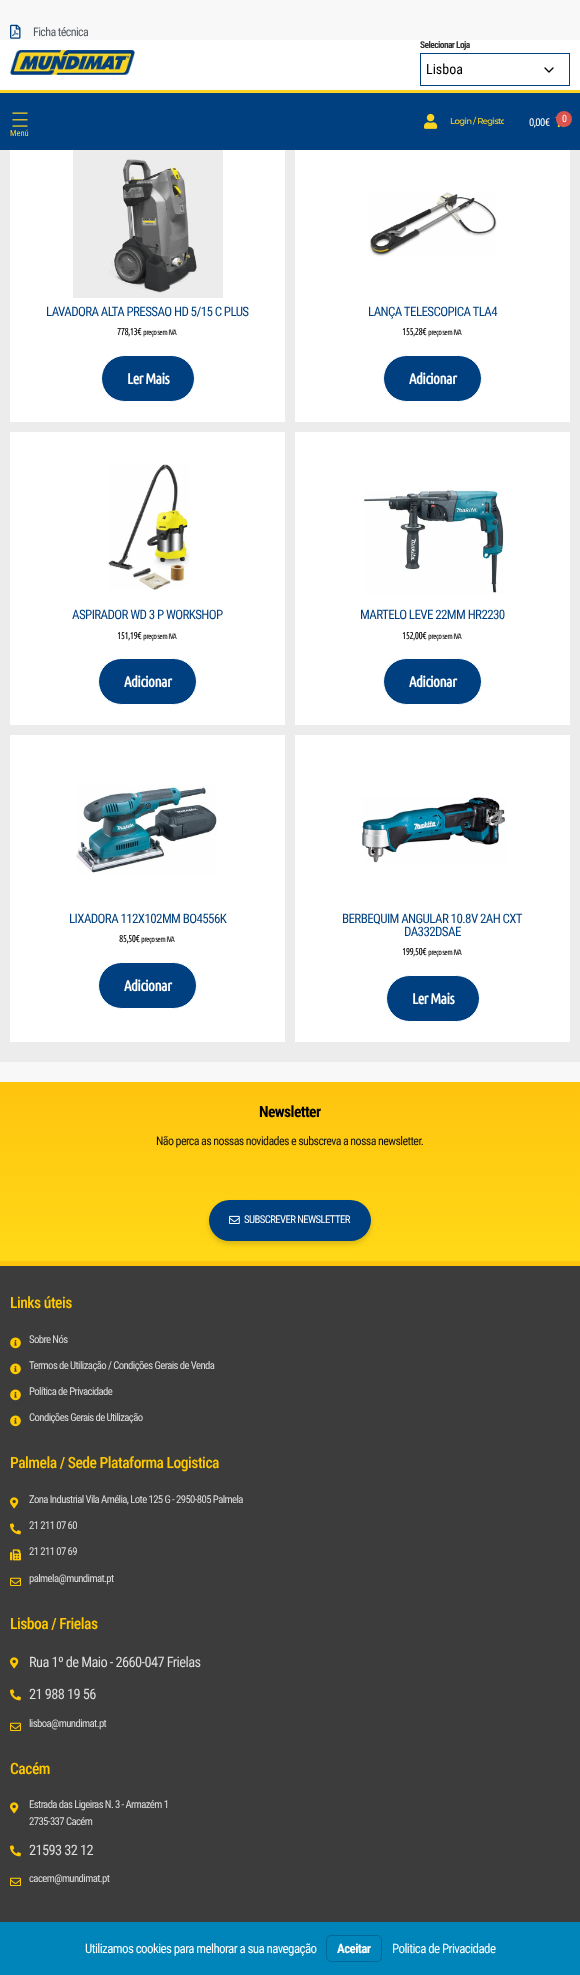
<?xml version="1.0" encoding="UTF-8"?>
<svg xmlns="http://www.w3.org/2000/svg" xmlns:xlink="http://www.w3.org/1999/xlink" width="580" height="1975">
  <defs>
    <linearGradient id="g1" gradientUnits="userSpaceOnUse" x1="290" y1="1082" x2="290" y2="1261"><stop offset="0" stop-color="#ffc40e" /><stop offset="1" stop-color="#ffd917" /></linearGradient>
    <clipPath id="clip1"><rect x="421" y="111" width="83" height="21" /></clipPath>
  </defs>
  <rect width="100%" height="100%" fill="#f8f8f8" />
  <image x="10" y="24" width="11" height="15" xlink:href="image1.png" />
  <rect y="150" width="580" height="912" fill="#ececec" />
  <rect x="10" y="150" width="275" height="272" fill="#ffffff" />
  <image x="73" y="150" width="150" height="148" xlink:href="image2.png" />
  <rect x="101.5" y="355.5" width="93" height="46" rx="23" fill="#004080" stroke="#ffffff" />
  <rect x="295" y="150" width="275" height="272" fill="#ffffff" />
  <image x="369" y="192" width="128" height="65" xlink:href="image3.png" />
  <rect x="383.5" y="355.5" width="98" height="46" rx="23" fill="#004080" stroke="#ffffff" />
  <rect x="10" y="432" width="275" height="293" fill="#ffffff" />
  <image x="108" y="464" width="82" height="126" xlink:href="image4.png" />
  <rect x="98.5" y="658.5" width="98" height="46" rx="23" fill="#004080" stroke="#ffffff" />
  <rect x="295" y="432" width="275" height="293" fill="#ffffff" />
  <image x="363" y="490" width="141" height="104" xlink:href="image5.png" />
  <rect x="383.5" y="658.5" width="98" height="46" rx="23" fill="#004080" stroke="#ffffff" />
  <rect x="10" y="735" width="275" height="307" fill="#ffffff" />
  <image x="76" y="785" width="141" height="90" xlink:href="image6.png" />
  <rect x="98.5" y="962.5" width="98" height="46" rx="23" fill="#004080" stroke="#ffffff" />
  <rect x="295" y="735" width="275" height="307" fill="#ffffff" />
  <image x="362" y="797" width="144" height="66" xlink:href="image7.png" />
  <rect x="386.5" y="975.5" width="93" height="46" rx="23" fill="#004080" stroke="#ffffff" />
  <rect y="40" width="580" height="50" fill="#ffffff" />
  <path d="M 545 68 l 4 4 l 4 -4" fill="none" stroke="#000000" stroke-width="1.3" stroke-linecap="round" stroke-linejoin="round" />
  <rect x="420.5" y="53.5" width="149" height="32" fill="none" stroke="#004080" />
  <image x="10" y="50" width="125" height="25" xlink:href="image8.png" />
  <rect y="93" width="580" height="57" fill="#004080" />
  <rect y="90" width="580" height="3" fill="#fcd323" />
  <image x="424" y="113" width="14" height="16" xlink:href="image9.png" />
  <image x="555" y="117" width="10" height="11" xlink:href="image10.png" />
  <circle cx="564" cy="119" r="8" fill="#d9534f" />
  <image x="12" y="112" width="16" height="15" xlink:href="image11.png" />
  <rect y="1082" width="580" height="179" fill="url(#g1)" />
  <rect x="209" y="1203" width="162" height="41" rx="20.5" fill="#000000" fill-opacity="0.15" filter="blur(2.5px)" />
  <rect x="209" y="1200" width="162" height="41" rx="20.5" fill="#004080" />
  <image x="229" y="1215" width="11" height="9" xlink:href="image12.png" />
  <rect y="1266" width="580" height="656" fill="#3c3c3c" />
  <rect y="1261" width="580" height="5" fill="#ffc40e" />
  <image x="10" y="1337" width="11" height="12" xlink:href="image13.png" />
  <path d="M 10 1352.5 h 560" fill="none" stroke="#393939" stroke-dasharray="1 1" />
  <image x="10" y="1363" width="11" height="12" xlink:href="image13.png" />
  <path d="M 10 1378.5 h 560" fill="none" stroke="#393939" stroke-dasharray="1 1" />
  <image x="10" y="1389" width="11" height="12" xlink:href="image13.png" />
  <path d="M 10 1404.5 h 560" fill="none" stroke="#393939" stroke-dasharray="1 1" />
  <image x="10" y="1415" width="11" height="12" xlink:href="image13.png" />
  <image x="10" y="1497" width="9" height="12" xlink:href="image14.png" />
  <path d="M 10 1512.5 h 560" fill="none" stroke="#393939" stroke-dasharray="1 1" />
  <image x="10" y="1523" width="11" height="12" xlink:href="image15.png" />
  <path d="M 10 1538.5 h 560" fill="none" stroke="#393939" stroke-dasharray="1 1" />
  <image x="10" y="1549" width="11" height="12" xlink:href="image16.png" />
  <path d="M 10 1565.5 h 560" fill="none" stroke="#393939" stroke-dasharray="1 1" />
  <image x="10" y="1577" width="11" height="9" xlink:href="image17.png" />
  <image x="10" y="1657" width="9" height="12" xlink:href="image14.png" />
  <path d="M 10 1678.5 h 560" fill="none" stroke="#393939" stroke-dasharray="1 1" />
  <image x="10" y="1689" width="11" height="12" xlink:href="image15.png" />
  <path d="M 10 1710.5 h 560" fill="none" stroke="#393939" stroke-dasharray="1 1" />
  <image x="10" y="1722" width="11" height="9" xlink:href="image17.png" />
  <image x="10" y="1802" width="9" height="12" xlink:href="image14.png" />
  <path d="M 10 1834.5 h 560" fill="none" stroke="#393939" stroke-dasharray="1 1" />
  <image x="10" y="1845" width="11" height="12" xlink:href="image15.png" />
  <path d="M 10 1865.5 h 560" fill="none" stroke="#393939" stroke-dasharray="1 1" />
  <image x="10" y="1877" width="11" height="9" xlink:href="image17.png" />
  <rect y="1922" width="580" height="53" fill="#0085ba" />
  <rect x="326.5" y="1935.5" width="55" height="26" rx="4.5" fill="none" stroke="#006799" />
  <text x="33" y="36" style="font-family: Roboto Condensed; font-size: 12px; letter-spacing: -0.6px; fill: #54595f">Ficha técnica</text>
  <text x="46" y="316" style="font-family: Roboto Condensed; font-size: 13px; letter-spacing: -0.6px; fill: #004080">LAVADORA ALTA PRESSAO HD 5/15 C PLUS</text>
  <text x="117" y="335" style="font-family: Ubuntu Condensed; font-size: 10px; letter-spacing: -0.6px; fill: #000000">778,13€</text>
  <text x="143" y="335" style="font-family: Ubuntu Condensed; font-size: 8px; letter-spacing: -0.6px; fill: #000000">preço sem IVA</text>
  <text x="127" y="384" style="font-family: Ubuntu Condensed; font-size: 15px; font-weight: bold; letter-spacing: -0.6px; fill: #ffffff">Ler Mais</text>
  <text x="368" y="316" style="font-family: Roboto Condensed; font-size: 13px; letter-spacing: -0.6px; fill: #004080">LANÇA TELESCOPICA TLA4</text>
  <text x="402" y="335" style="font-family: Ubuntu Condensed; font-size: 10px; letter-spacing: -0.6px; fill: #000000">155,28€</text>
  <text x="428" y="335" style="font-family: Ubuntu Condensed; font-size: 8px; letter-spacing: -0.6px; fill: #000000">preço sem IVA</text>
  <text x="409" y="384" style="font-family: Ubuntu Condensed; font-size: 15px; font-weight: bold; letter-spacing: -0.6px; fill: #ffffff">Adicionar</text>
  <text x="72" y="619" style="font-family: Roboto Condensed; font-size: 13px; letter-spacing: -0.6px; fill: #004080">ASPIRADOR WD 3 P WORKSHOP</text>
  <text x="117" y="639" style="font-family: Ubuntu Condensed; font-size: 10px; letter-spacing: -0.6px; fill: #000000">151,19€</text>
  <text x="143" y="639" style="font-family: Ubuntu Condensed; font-size: 8px; letter-spacing: -0.6px; fill: #000000">preço sem IVA</text>
  <text x="124" y="687" style="font-family: Ubuntu Condensed; font-size: 15px; font-weight: bold; letter-spacing: -0.6px; fill: #ffffff">Adicionar</text>
  <text x="360" y="619" style="font-family: Roboto Condensed; font-size: 13px; letter-spacing: -0.6px; fill: #004080">MARTELO LEVE 22MM HR2230</text>
  <text x="402" y="639" style="font-family: Ubuntu Condensed; font-size: 10px; letter-spacing: -0.6px; fill: #000000">152,00€</text>
  <text x="428" y="639" style="font-family: Ubuntu Condensed; font-size: 8px; letter-spacing: -0.6px; fill: #000000">preço sem IVA</text>
  <text x="409" y="687" style="font-family: Ubuntu Condensed; font-size: 15px; font-weight: bold; letter-spacing: -0.6px; fill: #ffffff">Adicionar</text>
  <text x="69" y="923" style="font-family: Roboto Condensed; font-size: 13px; letter-spacing: -0.6px; fill: #004080">LIXADORA 112X102MM BO4556K</text>
  <text x="119" y="942" style="font-family: Ubuntu Condensed; font-size: 10px; letter-spacing: -0.6px; fill: #000000">85,50€</text>
  <text x="141" y="942" style="font-family: Ubuntu Condensed; font-size: 8px; letter-spacing: -0.6px; fill: #000000">preço sem IVA</text>
  <text x="124" y="991" style="font-family: Ubuntu Condensed; font-size: 15px; font-weight: bold; letter-spacing: -0.6px; fill: #ffffff">Adicionar</text>
  <text x="342" y="923" style="font-family: Roboto Condensed; font-size: 13px; letter-spacing: -0.6px; fill: #004080">BERBEQUIM ANGULAR 10.8V 2AH CXT</text>
  <text x="404" y="936" style="font-family: Roboto Condensed; font-size: 13px; letter-spacing: -0.6px; fill: #004080">DA332DSAE</text>
  <text x="402" y="955" style="font-family: Ubuntu Condensed; font-size: 10px; letter-spacing: -0.6px; fill: #000000">199,50€</text>
  <text x="428" y="955" style="font-family: Ubuntu Condensed; font-size: 8px; letter-spacing: -0.6px; fill: #000000">preço sem IVA</text>
  <text x="412" y="1004" style="font-family: Ubuntu Condensed; font-size: 15px; font-weight: bold; letter-spacing: -0.6px; fill: #ffffff">Ler Mais</text>
  <text x="420" y="48" style="font-family: Roboto Condensed; font-size: 9.5px; font-weight: bold; letter-spacing: -0.6px; fill: #333333">Selecionar Loja</text>
  <text x="426" y="74" style="font-family: Roboto Condensed; font-size: 14px; fill: #000000">Lisboa</text>
  <g clip-path="url(#clip1)">
    <text x="450" y="124" style="font-family: Montserrat; font-size: 8.5px; font-weight: 500; letter-spacing: -0.6px; fill: #fcd323">Login / Registo</text>
  </g>
  <text x="529" y="126" style="font-family: Roboto Condensed; font-size: 10.75px; letter-spacing: -0.6px; fill: #ffffff">0,00€</text>
  <text x="562" y="122" style="font-family: Roboto Condensed; font-size: 10px; letter-spacing: -0.6px; fill: #ffffff">0</text>
  <text x="10" y="136" style="font-family: Roboto Condensed; font-size: 8.5px; fill: #fcd323">Menú</text>
  <text x="259" y="1117" style="font-family: Roboto Condensed; font-size: 15.6px; font-weight: bold; letter-spacing: -0.6px; fill: #000000">Newsletter</text>
  <text x="156" y="1145" style="font-family: Roboto Condensed; font-size: 12px; letter-spacing: -0.6px; fill: #131313">Não perca as nossas novidades e subscreva a nossa newsletter.</text>
  <text x="244" y="1223" style="font-family: Roboto Condensed; font-size: 10.75px; letter-spacing: -0.6px; fill: #ffffff">SUBSCREVER NEWSLETTER</text>
  <text x="10" y="1308" style="font-family: Roboto Condensed; font-size: 15.6px; font-weight: 500; letter-spacing: -0.5px; fill: #ffc900">Links úteis</text>
  <text x="29" y="1343" style="font-family: Roboto Condensed; font-size: 10.75px; letter-spacing: -0.6px; fill: #dddddd">Sobre Nós</text>
  <text x="29" y="1369" style="font-family: Roboto Condensed; font-size: 10.75px; letter-spacing: -0.6px; fill: #dddddd">Termos de Utilização / Condições Gerais de Venda</text>
  <text x="29" y="1395" style="font-family: Roboto Condensed; font-size: 10.75px; letter-spacing: -0.6px; fill: #dddddd">Política de Privacidade</text>
  <text x="29" y="1421" style="font-family: Roboto Condensed; font-size: 10.75px; letter-spacing: -0.6px; fill: #dddddd">Condições Gerais de Utilização</text>
  <text x="10" y="1468" style="font-family: Roboto Condensed; font-size: 15.6px; font-weight: 500; letter-spacing: -0.5px; fill: #ffc900">Palmela / Sede Plataforma Logistica</text>
  <text x="29" y="1503" style="font-family: Roboto Condensed; font-size: 10.75px; letter-spacing: -0.6px; fill: #dddddd">Zona Industrial Vila Amélia, Lote 125 G - 2950-805 Palmela</text>
  <text x="29" y="1529" style="font-family: Roboto Condensed; font-size: 10.75px; letter-spacing: -0.6px; fill: #dddddd">21 211 07 60</text>
  <text x="29" y="1555" style="font-family: Roboto Condensed; font-size: 10.75px; letter-spacing: -0.6px; fill: #dddddd">21 211 07 69</text>
  <text x="29" y="1582" style="font-family: Roboto Condensed; font-size: 10.75px; letter-spacing: -0.6px; fill: #dddddd">palmela@mundimat.pt</text>
  <text x="10" y="1629" style="font-family: Roboto Condensed; font-size: 15.6px; font-weight: 500; letter-spacing: -0.5px; fill: #ffc900">Lisboa / Frielas</text>
  <text x="29" y="1667" style="font-family: Roboto Condensed; font-size: 14.4px; letter-spacing: -0.6px; fill: #dddddd">Rua 1º de Maio - 2660-047 Frielas</text>
  <text x="29" y="1699" style="font-family: Roboto Condensed; font-size: 14.4px; letter-spacing: -0.6px; fill: #dddddd">21 988 19 56</text>
  <text x="29" y="1727" style="font-family: Roboto Condensed; font-size: 10.75px; letter-spacing: -0.6px; fill: #dddddd">lisboa@mundimat.pt</text>
  <text x="10" y="1774" style="font-family: Roboto Condensed; font-size: 15.6px; font-weight: 500; letter-spacing: -0.5px; fill: #ffc900">Cacém</text>
  <text x="29" y="1808" style="font-family: Roboto Condensed; font-size: 10.75px; letter-spacing: -0.6px; fill: #dddddd">Estrada das Ligeiras N. 3 - Armazém 1</text>
  <text x="29" y="1825" style="font-family: Roboto Condensed; font-size: 10.75px; letter-spacing: -0.6px; fill: #dddddd">2735-337 Cacém</text>
  <text x="29" y="1855" style="font-family: Roboto Condensed; font-size: 14.4px; letter-spacing: -0.6px; fill: #dddddd">21593 32 12</text>
  <text x="29" y="1882" style="font-family: Roboto Condensed; font-size: 10.75px; letter-spacing: -0.6px; fill: #dddddd">cacem@mundimat.pt</text>
  <text x="85" y="1953" style="font-family: Roboto Condensed; font-size: 13px; letter-spacing: -0.6px; fill: #ffffff">Utilizamos cookies para melhorar a sua navegação</text>
  <text x="337" y="1953" style="font-family: Roboto Condensed; font-size: 13px; font-weight: bold; letter-spacing: -0.6px; fill: #ffffff">Aceitar</text>
  <text x="392" y="1953" style="font-family: Roboto Condensed; font-size: 13px; letter-spacing: -0.6px; fill: #ffffff">Politica de Privacidade</text>
</svg>
